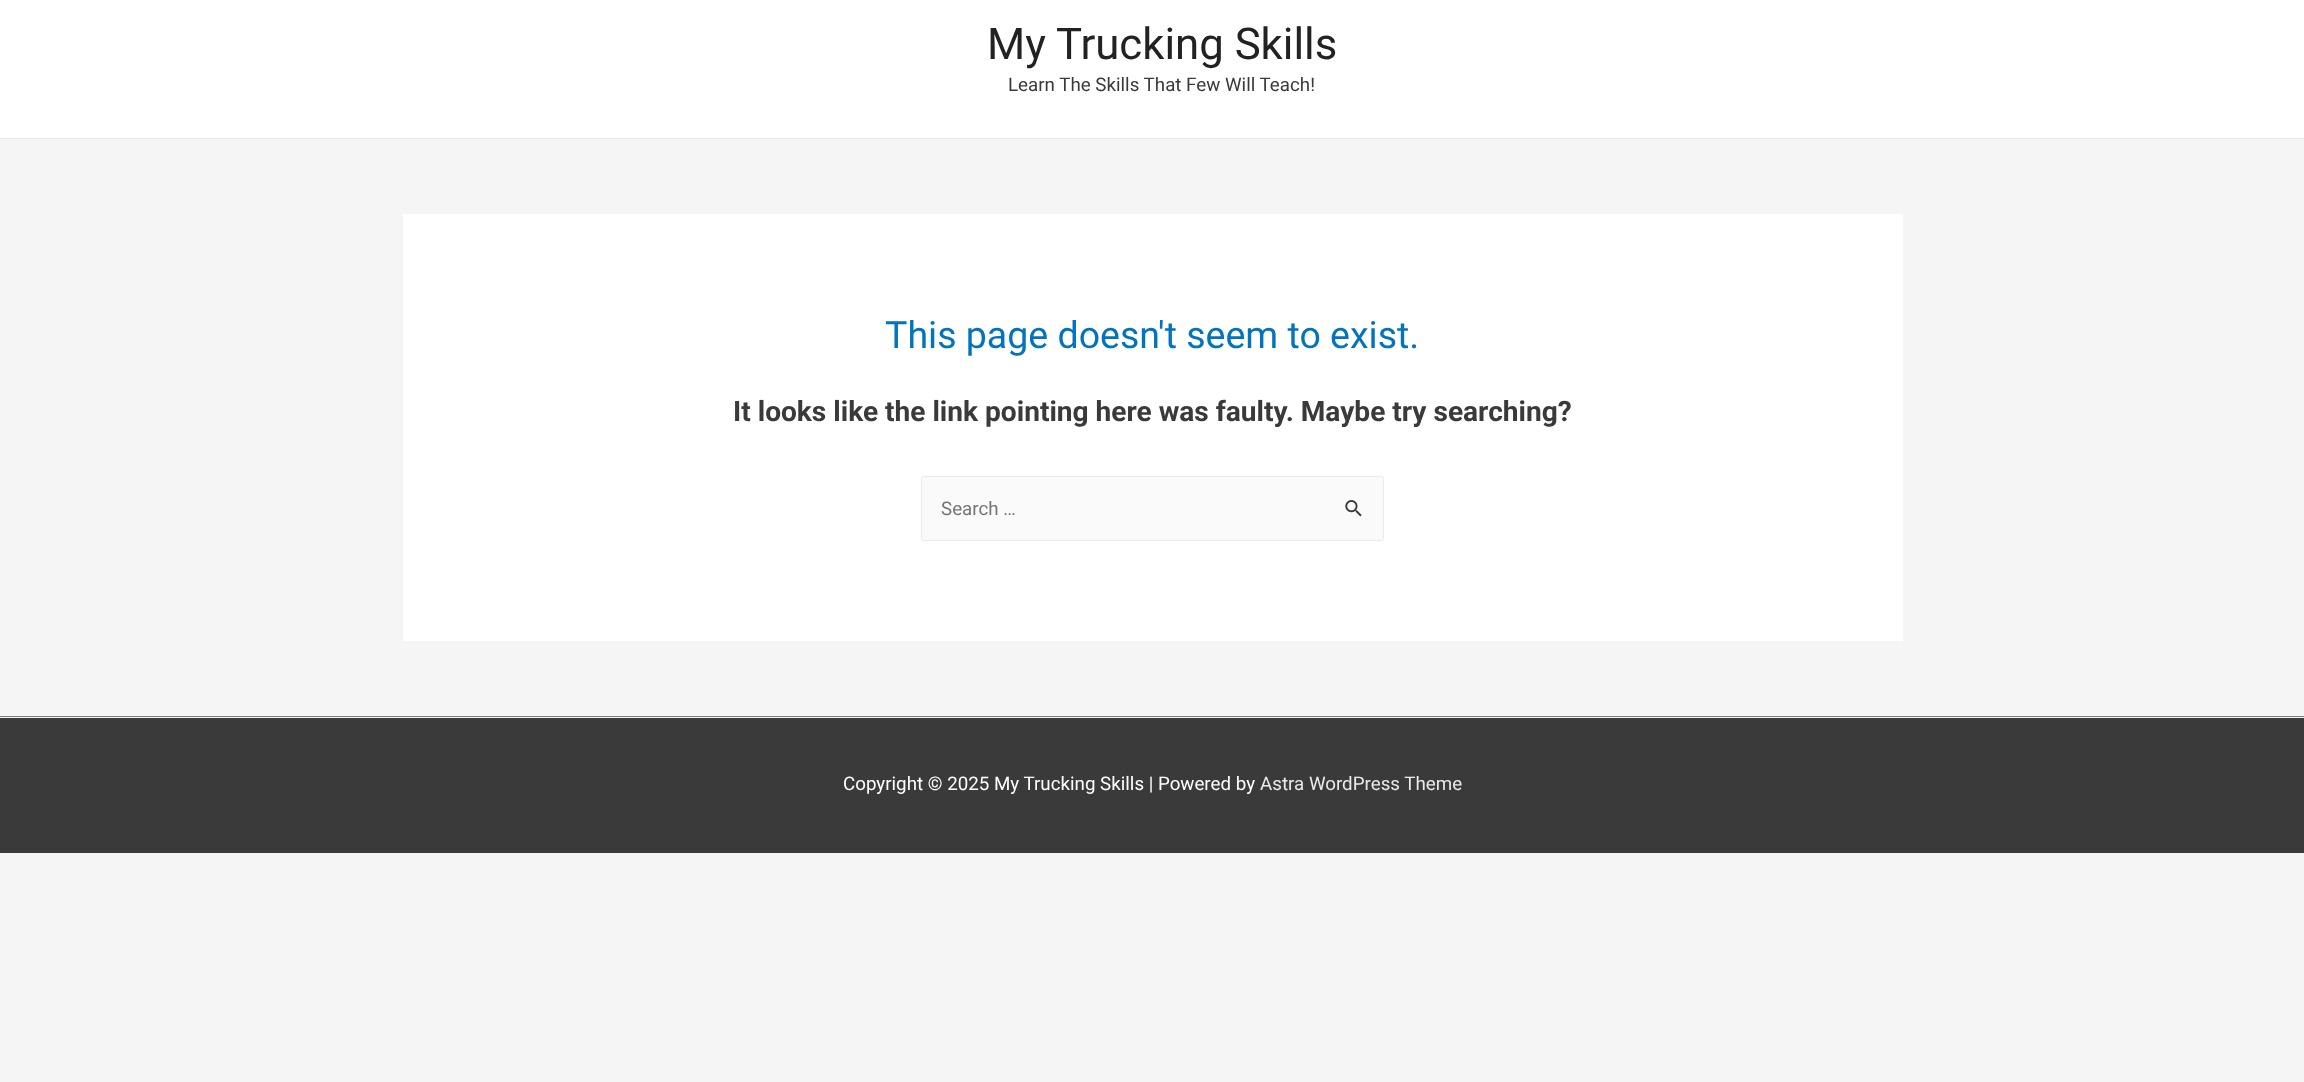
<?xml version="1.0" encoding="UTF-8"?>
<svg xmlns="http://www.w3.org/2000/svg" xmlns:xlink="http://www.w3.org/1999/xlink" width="2304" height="1082">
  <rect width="100%" height="100%" fill="#f5f5f5" />
  <rect width="2304" height="138" fill="#ffffff" />
  <rect y="138" width="2304" height="1" fill="#eaeaea" />
  <rect x="403" y="214" width="1500" height="427" fill="#ffffff" />
  <rect x="921.5" y="476.5" width="462" height="64" rx="2" fill="#fafafa" stroke="#eaeaea" />
  <image x="1345" y="500" width="17" height="17" xlink:href="image1.png" />
  <rect y="716" width="2304" height="1" fill="#7a7a7a" />
  <rect y="718" width="2304" height="135" fill="#3a3a3a" />
  <text x="987" y="59" style="font-family: Roboto; font-size: 43.75px; fill: #222222">My Trucking Skills</text>
  <text x="1008" y="91" style="font-family: Roboto; font-size: 18.75px; fill: #3a3a3a">Learn The Skills That Few Will Teach!</text>
  <text x="885" y="348" style="font-family: Roboto; font-size: 37.5px; fill: #0274be">This page doesn't seem to exist.</text>
  <text x="733" y="421" style="font-family: Roboto; font-size: 28.1px; font-weight: bold; fill: #3a3a3a">It looks like the link pointing here was faulty. Maybe try searching?</text>
  <text x="941" y="515" style="font-family: Roboto; font-size: 18.75px; fill: #757575">Search …</text>
  <text x="843" y="790" style="font-family: Roboto; font-size: 18.75px; fill: #ffffff">Copyright © 2025 My Trucking Skills | Powered by</text>
  <text x="1260" y="790" style="font-family: Roboto; font-size: 18.75px; fill: #eaeaea">Astra WordPress Theme</text>
</svg>
